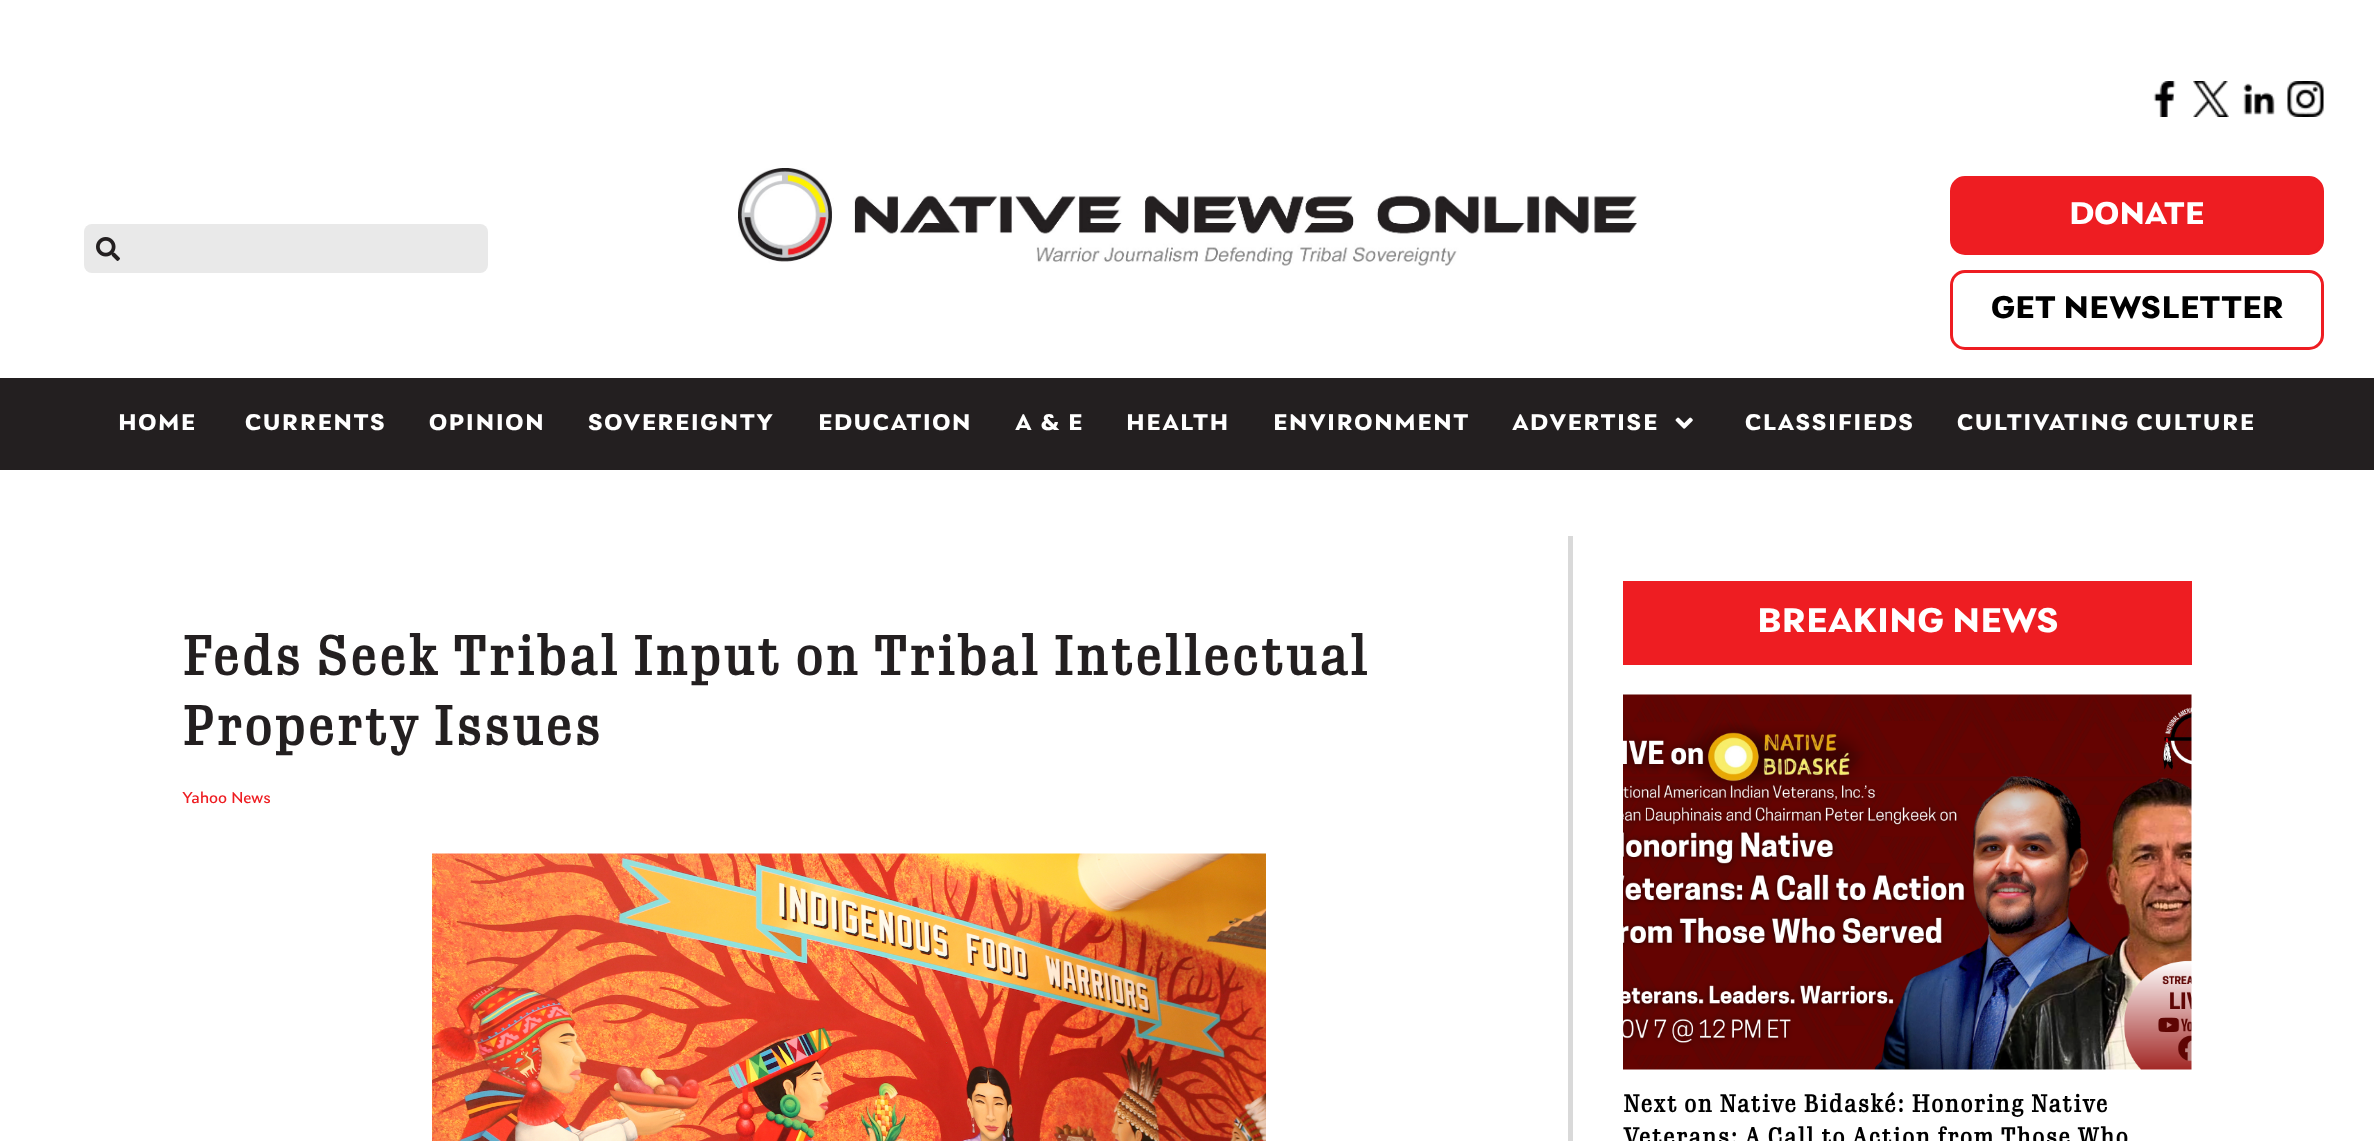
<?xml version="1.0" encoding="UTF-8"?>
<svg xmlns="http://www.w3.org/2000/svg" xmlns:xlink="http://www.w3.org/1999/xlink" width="2374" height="1141">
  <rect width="100%" height="100%" fill="#ffffff" />
  <image x="2153" y="81" width="23" height="36" xlink:href="image1.png" />
  <image x="2193" y="81" width="36" height="36" xlink:href="image2.png" />
  <image x="2243" y="83" width="32" height="32" xlink:href="image3.png" />
  <image x="2287" y="81" width="37" height="36" xlink:href="image4.png" />
  <rect x="84" y="224" width="404" height="49" rx="8" fill="#e9e9e9" />
  <image x="96" y="237" width="24" height="24" xlink:href="image5.png" />
  <image x="738" y="168" width="899" height="98" xlink:href="image6.png" />
  <rect x="1951.5" y="177.5" width="371" height="76" rx="13.5" fill="#ee1d22" stroke="#ee1d22" stroke-width="3" />
  <rect x="1951.5" y="271.5" width="371" height="77" rx="13.5" fill="none" stroke="#ee1d22" stroke-width="3" />
  <rect y="378" width="2374" height="92" fill="#231f20" />
  <image x="1675" y="417" width="18" height="12" xlink:href="image7.png" />
  <image x="432" y="853" width="834" height="288" xlink:href="image8.png" />
  <rect x="1568" y="536" width="5" height="605" fill="#d9d9d9" />
  <rect x="1623" y="581" width="569" height="84" fill="#ee1d22" />
  <image x="1623" y="694" width="569" height="376" xlink:href="image9.png" />
  <text x="2069" y="224" style="font-family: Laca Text; font-size: 33px; font-weight: bold; fill: #ffffff">DONATE</text>
  <text x="1991" y="318" style="font-family: Laca Text; font-size: 33px; font-weight: bold; fill: #000000">GET NEWSLETTER</text>
  <text x="118" y="430" style="font-family: Laca Text; font-size: 24px; font-weight: bold; letter-spacing: 1.5px; fill: #ffffff">HOME</text>
  <text x="245" y="430" style="font-family: Laca Text; font-size: 24px; font-weight: bold; letter-spacing: 1.5px; fill: #ffffff">CURRENTS</text>
  <text x="429" y="430" style="font-family: Laca Text; font-size: 24px; font-weight: bold; letter-spacing: 1.5px; fill: #ffffff">OPINION</text>
  <text x="588" y="430" style="font-family: Laca Text; font-size: 24px; font-weight: bold; letter-spacing: 1.5px; fill: #ffffff">SOVEREIGNTY</text>
  <text x="818" y="430" style="font-family: Laca Text; font-size: 24px; font-weight: bold; letter-spacing: 1.5px; fill: #ffffff">EDUCATION</text>
  <text x="1015" y="430" style="font-family: Laca Text; font-size: 24px; font-weight: bold; letter-spacing: 1.5px; fill: #ffffff">A &amp; E</text>
  <text x="1126" y="430" style="font-family: Laca Text; font-size: 24px; font-weight: bold; letter-spacing: 1.5px; fill: #ffffff">HEALTH</text>
  <text x="1273" y="430" style="font-family: Laca Text; font-size: 24px; font-weight: bold; letter-spacing: 1.5px; fill: #ffffff">ENVIRONMENT</text>
  <text x="1512" y="430" style="font-family: Laca Text; font-size: 24px; font-weight: bold; letter-spacing: 1.5px; fill: #ffffff">ADVERTISE</text>
  <text x="1745" y="430" style="font-family: Laca Text; font-size: 24px; font-weight: bold; letter-spacing: 1.5px; fill: #ffffff">CLASSIFIEDS</text>
  <text x="1957" y="430" style="font-family: Laca Text; font-size: 24px; font-weight: bold; letter-spacing: 1.5px; fill: #ffffff">CULTIVATING CULTURE</text>
  <text x="182" y="675" style="font-family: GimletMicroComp; font-size: 54px; font-weight: bold; letter-spacing: 2.4px; fill: #231f20">Feds Seek Tribal Input on Tribal Intellectual</text>
  <text x="182" y="745" style="font-family: GimletMicroComp; font-size: 54px; font-weight: bold; letter-spacing: 2.4px; fill: #231f20">Property Issues</text>
  <text x="182" y="803" style="font-family: Laca Text; font-size: 16.75px; fill: #ee1d22">Yahoo News</text>
  <text x="1757" y="632" style="font-family: Laca Text; font-size: 36px; font-weight: bold; fill: #ffffff">BREAKING NEWS</text>
  <text x="1623" y="1112" style="font-family: GimletMicroComp; font-size: 24px; font-weight: bold; letter-spacing: 1.2px; fill: #000000">Next on Native Bidaské: Honoring Native</text>
  <text x="1623" y="1145" style="font-family: GimletMicroComp; font-size: 24px; font-weight: bold; letter-spacing: 1.2px; fill: #000000">Veterans: A Call to Action from Those Who</text>
</svg>
